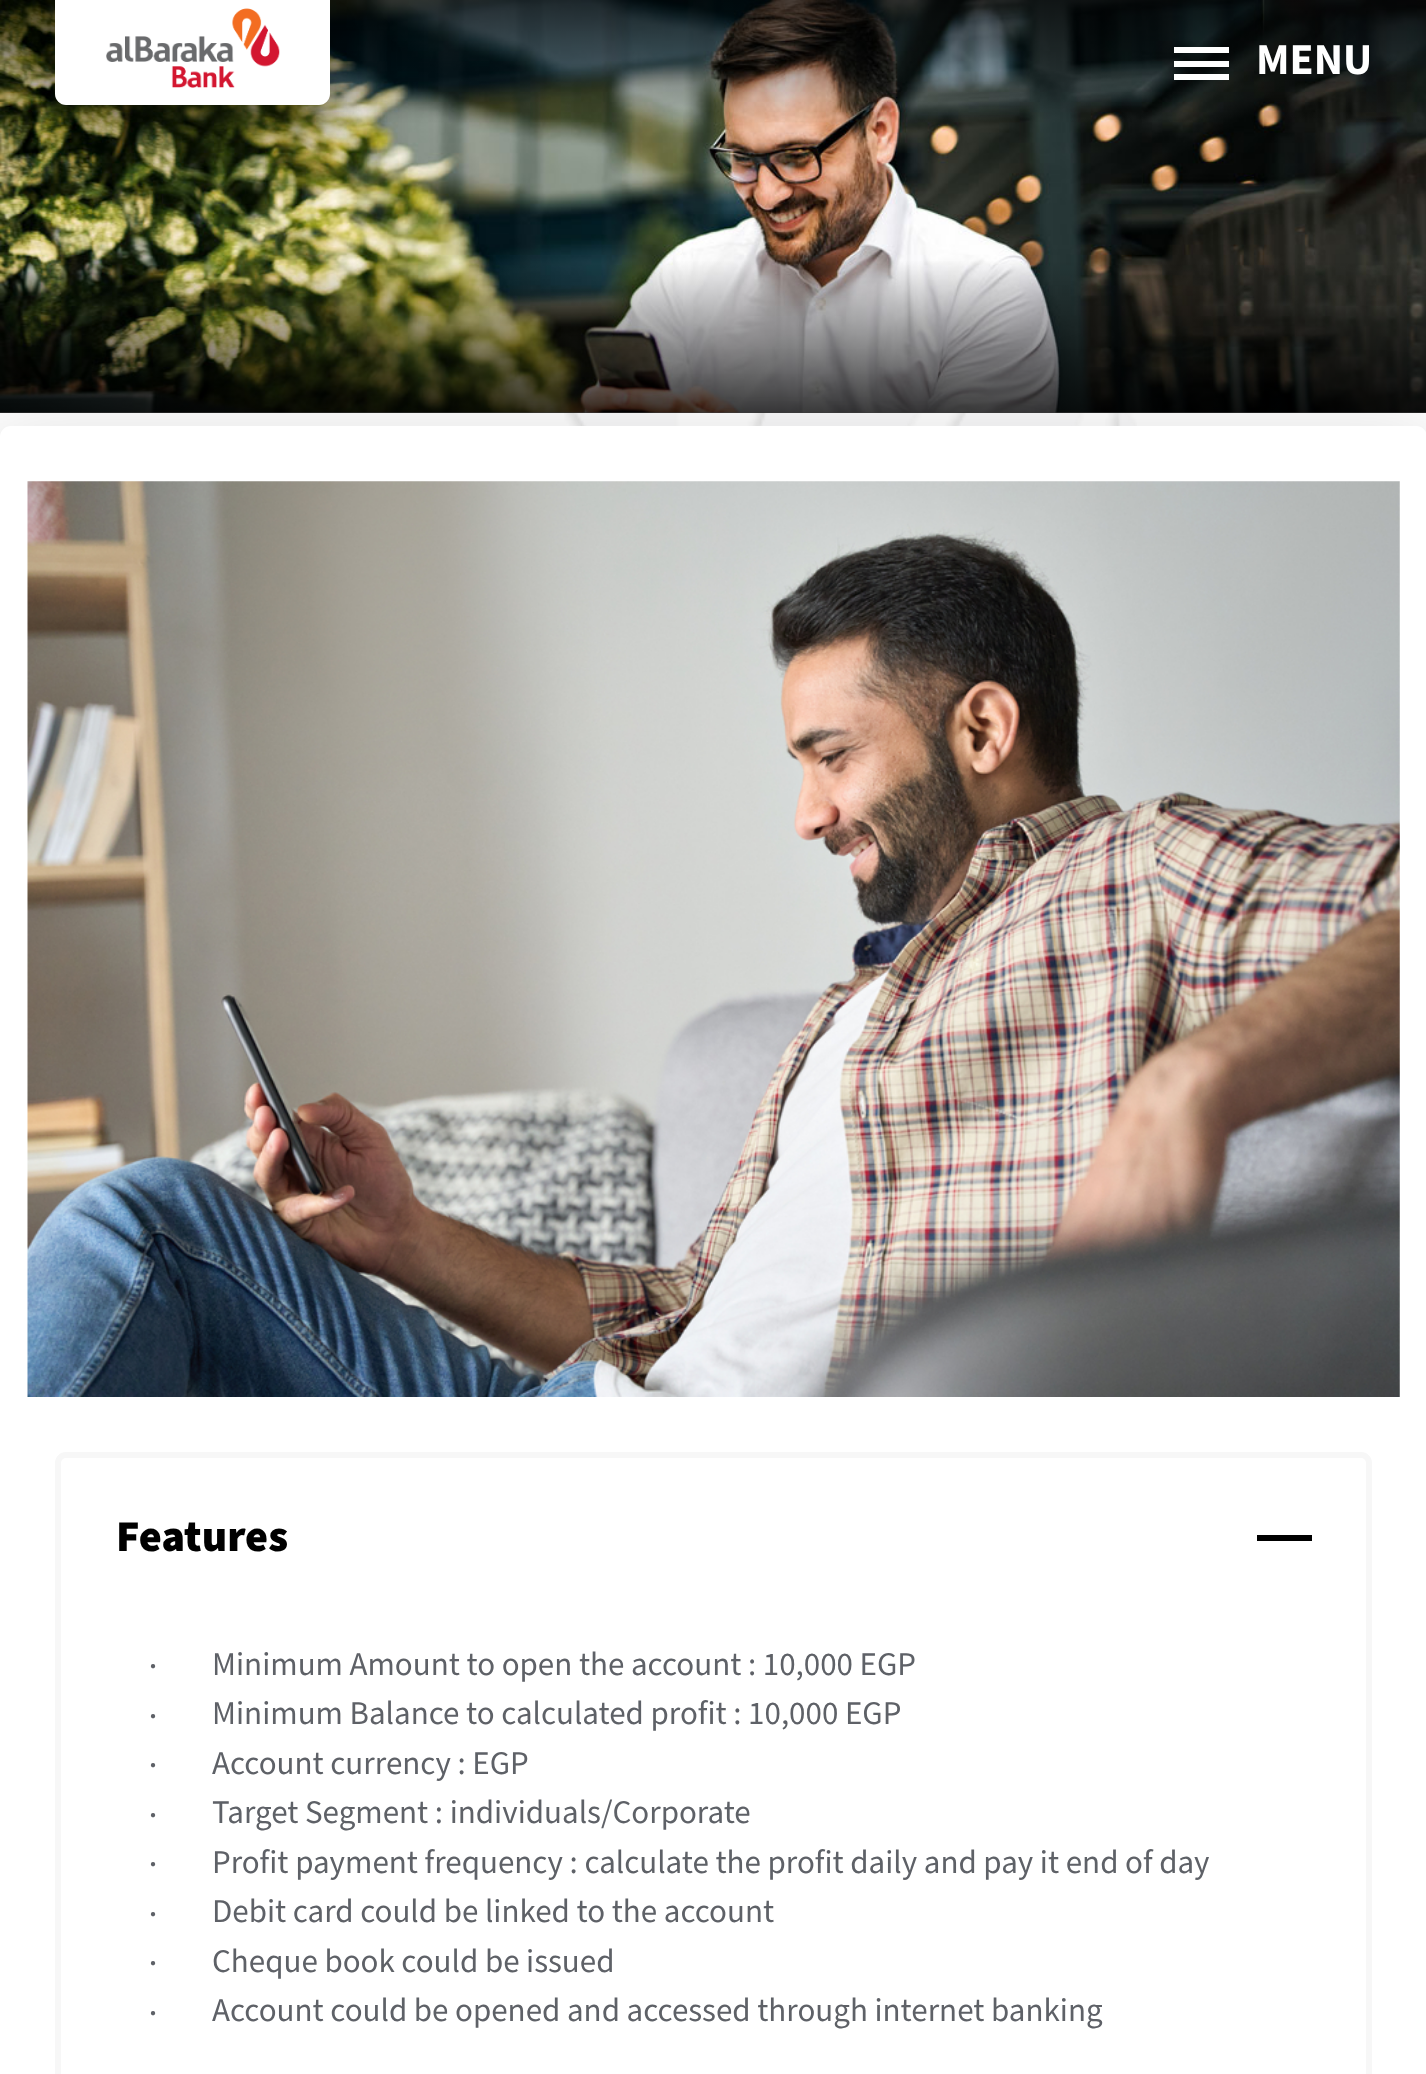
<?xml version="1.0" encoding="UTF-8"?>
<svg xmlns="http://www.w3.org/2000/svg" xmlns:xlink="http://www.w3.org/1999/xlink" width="1426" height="2074">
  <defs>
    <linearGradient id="g1" gradientUnits="userSpaceOnUse" x1="714" y1="0" x2="714" y2="413"><stop offset="0" stop-color="#000000" stop-opacity="0.66" /><stop offset="0.3" stop-color="#000000" stop-opacity="0" /><stop offset="0.63" stop-color="#000000" stop-opacity="0" /><stop offset="1" stop-color="#000000" stop-opacity="0.75" /></linearGradient>
  </defs>
  <rect width="100%" height="100%" fill="#ffffff" />
  <image x="564" y="412" width="573" height="14" xlink:href="image1.png" />
  <image x="0" y="0" width="1426" height="413" xlink:href="image3.png" />
  <rect width="1426" height="413" fill="url(#g1)" />
  <rect x="55" y="22" width="275" height="105" rx="11" fill="#000000" fill-opacity="0.2" filter="blur(14px)" />
  <rect x="41" y="3" width="303" height="132" rx="25" fill="#000000" fill-opacity="0.12" filter="blur(41px)" />
  <rect x="50" y="39" width="286" height="115" rx="17" fill="#000000" fill-opacity="0.14" filter="blur(33px)" />
  <path d="M 55 0 h 275 v 94 c 0 6 -5 11 -11 11 h -253 c -6 0 -11 -5 -11 -11 z" fill="#ffffff" />
  <image x="106" y="8" width="174" height="80" xlink:href="image2.png" />
  <rect x="1174" y="47" width="55" height="6" fill="#ffffff" />
  <rect x="1174" y="61" width="55" height="6" fill="#ffffff" />
  <rect x="1174" y="74" width="55" height="6" fill="#ffffff" />
  <rect x="-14" y="429" width="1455" height="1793" rx="25" fill="#000000" fill-opacity="0.12" filter="blur(41px)" />
  <rect y="426" width="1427" height="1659" rx="11" fill="#ffffff" />
  <image x="27" y="481" width="1373" height="916" xlink:href="image4.png" />
  <rect x="58" y="1455" width="1311" height="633" rx="8" fill="none" stroke="#f7f7f7" stroke-width="6" />
  <rect x="1257" y="1535" width="55" height="6" fill="#000000" />
  <text x="1256" y="74" style="font-family: Mada; font-size: 44px; font-weight: bold; fill: #ffffff">MENU</text>
  <text x="116" y="1551" style="font-family: Mada; font-size: 44px; font-weight: 900; fill: #000000">Features</text>
  <text x="150" y="1669" style="font-family: Liberation Sans; font-size: 10px; fill: #5e6167">●</text>
  <text x="212" y="1675" style="font-family: Mada; font-size: 33px; fill: #5e6167">Minimum Amount to open the account : 10,000 EGP</text>
  <text x="150" y="1719" style="font-family: Liberation Sans; font-size: 10px; fill: #5e6167">●</text>
  <text x="212" y="1724" style="font-family: Mada; font-size: 33px; fill: #5e6167">Minimum Balance to calculated profit : 10,000 EGP</text>
  <text x="150" y="1768" style="font-family: Liberation Sans; font-size: 10px; fill: #5e6167">●</text>
  <text x="212" y="1774" style="font-family: Mada; font-size: 33px; fill: #5e6167">Account currency : EGP</text>
  <text x="150" y="1818" style="font-family: Liberation Sans; font-size: 10px; fill: #5e6167">●</text>
  <text x="212" y="1823" style="font-family: Mada; font-size: 33px; fill: #5e6167">Target Segment : individuals/Corporate</text>
  <text x="150" y="1867" style="font-family: Liberation Sans; font-size: 10px; fill: #5e6167">●</text>
  <text x="212" y="1873" style="font-family: Mada; font-size: 33px; fill: #5e6167">Profit payment frequency : calculate the profit daily and pay it end of day</text>
  <text x="150" y="1917" style="font-family: Liberation Sans; font-size: 10px; fill: #5e6167">●</text>
  <text x="212" y="1922" style="font-family: Mada; font-size: 33px; fill: #5e6167">Debit card could be linked to the account</text>
  <text x="150" y="1966" style="font-family: Liberation Sans; font-size: 10px; fill: #5e6167">●</text>
  <text x="212" y="1972" style="font-family: Mada; font-size: 33px; fill: #5e6167">Cheque book could be issued</text>
  <text x="150" y="2016" style="font-family: Liberation Sans; font-size: 10px; fill: #5e6167">●</text>
  <text x="212" y="2021" style="font-family: Mada; font-size: 33px; fill: #5e6167">Account could be opened and accessed through internet banking</text>
</svg>
